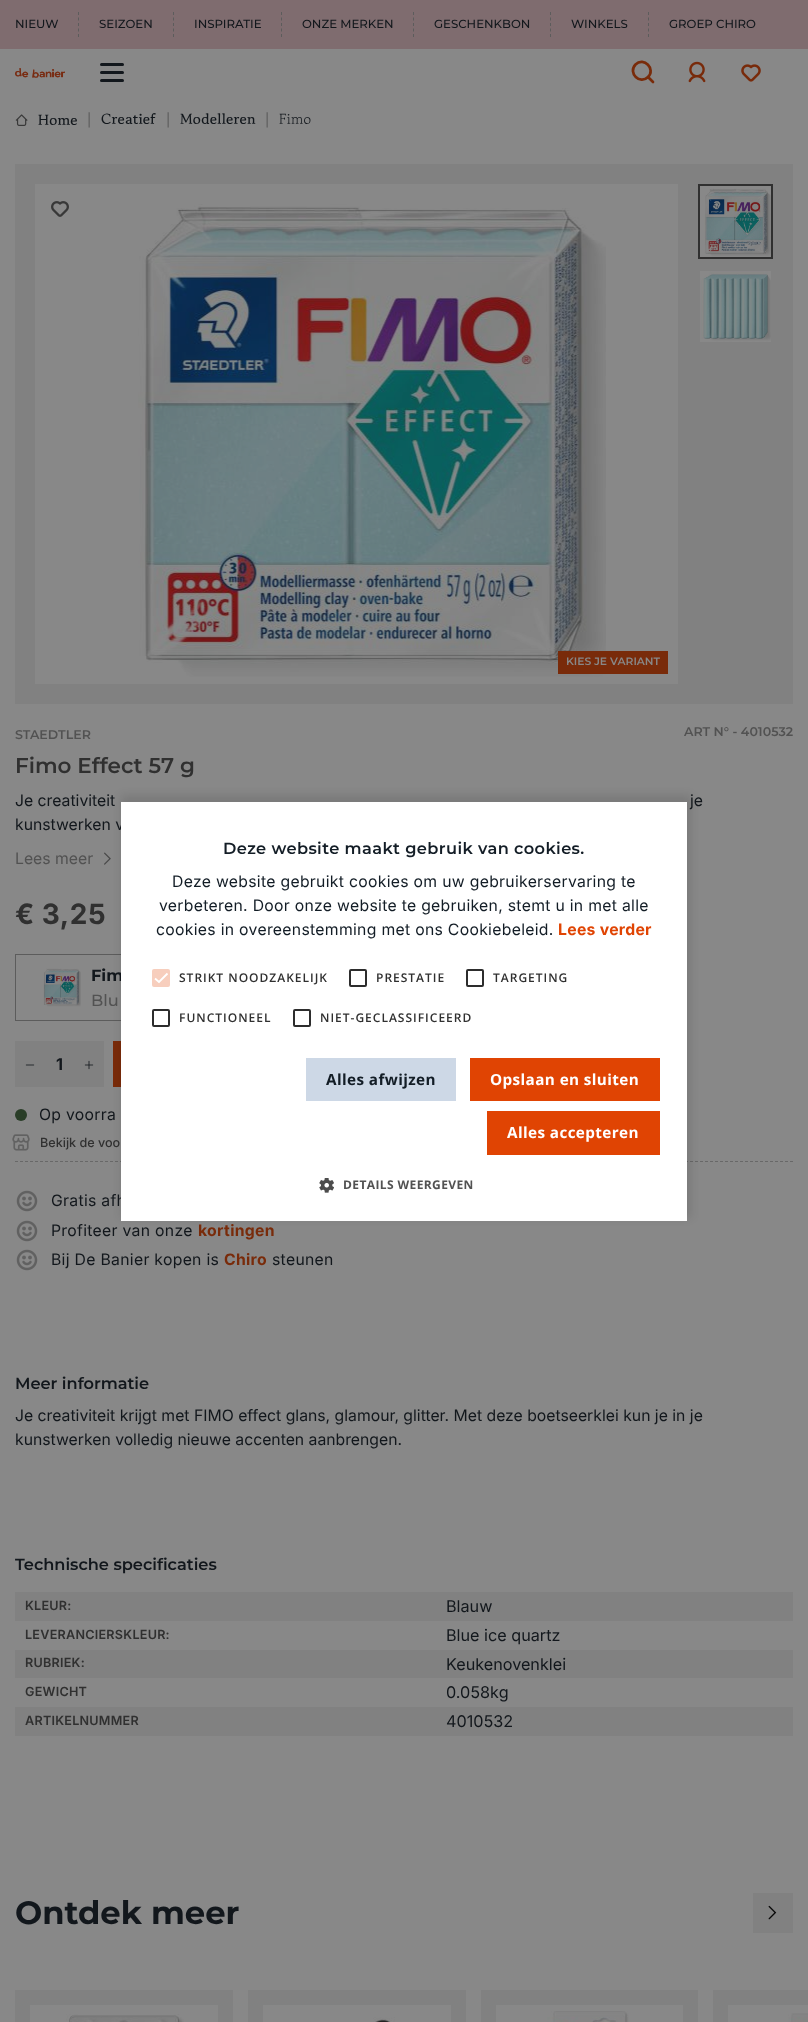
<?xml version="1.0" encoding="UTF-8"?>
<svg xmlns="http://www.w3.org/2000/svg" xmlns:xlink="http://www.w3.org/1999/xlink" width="808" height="2022">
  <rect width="100%" height="100%" fill="#888888" />
  <rect width="808" height="49" fill="#7f6c6f" />
  <path d="M 78.5 12 v 25" fill="none" stroke="#5c5c5c" stroke-dasharray="3 2.5" />
  <path d="M 173.5 12 v 25" fill="none" stroke="#5c5c5c" stroke-dasharray="3 2.5" />
  <path d="M 281.5 12 v 25" fill="none" stroke="#5c5c5c" stroke-dasharray="3 2.5" />
  <path d="M 413.5 12 v 25" fill="none" stroke="#5c5c5c" stroke-dasharray="3 2.5" />
  <path d="M 550.5 12 v 25" fill="none" stroke="#5c5c5c" stroke-dasharray="3 2.5" />
  <path d="M 648.5 12 v 25" fill="none" stroke="#5c5c5c" stroke-dasharray="3 2.5" />
  <image x="15" y="68" width="50" height="10" xlink:href="image1.png" />
  <rect x="100" y="63" width="24" height="3" rx="1.5" fill="#12171c" />
  <rect x="100" y="71" width="24" height="3" rx="1.5" fill="#12171c" />
  <rect x="100" y="79" width="24" height="3" rx="1.5" fill="#12171c" />
  <path d="M 653 82 l -5 -5 m 0 0 c 8 -8 -4 -20.5 -12.5 -12.5 c -8 8.5 4.5 20.5 12.5 12.5 z" fill="none" stroke="#792b0a" stroke-width="2.7" stroke-linecap="round" stroke-linejoin="round" />
  <image x="688" y="61" width="18" height="22" xlink:href="image2.png" />
  <image x="741" y="64" width="20" height="18" xlink:href="image3.png" />
  <image x="15" y="114" width="13" height="12" xlink:href="image4.png" />
  <rect x="15" y="164" width="778" height="540" fill="#818181" />
  <rect x="699" y="185" width="73" height="73" fill="none" stroke="#303030" stroke-width="2" />
  <image x="700" y="186" width="71" height="71" xlink:href="image5.png" />
  <image x="700" y="271" width="71" height="71" xlink:href="image6.png" />
  <rect x="35" y="184" width="643" height="500" fill="#888888" />
  <image x="51" y="201" width="18" height="16" xlink:href="image7.png" />
  <image x="138" y="204" width="468" height="473" xlink:href="image8.png" />
  <rect x="558" y="651" width="110" height="23" fill="#792b0a" />
  <image x="104" y="852" width="7" height="13" xlink:href="image9.png" />
  <rect x="15.5" y="954.5" width="499" height="66" fill="none" stroke="#5c5c5c" />
  <image x="43" y="968" width="38" height="39" xlink:href="image10.png" />
  <rect x="15" y="1041" width="29" height="46" fill="#818181" />
  <image x="25" y="1064" width="10" height="2" xlink:href="image11.png" />
  <rect x="44.5" y="1041.5" width="29" height="45" fill="#818181" stroke="#818181" />
  <rect x="74" y="1041" width="30" height="46" fill="#818181" />
  <image x="84" y="1060" width="10" height="10" xlink:href="image12.png" />
  <rect x="113" y="1041" width="8" height="46" fill="#792b0a" />
  <path d="M 15 1161.5 h 778" fill="none" stroke="#686868" stroke-dasharray="3 2" />
  <circle cx="21" cy="1115" r="6" fill="#293d27" />
  <image x="12" y="1134" width="18" height="17" xlink:href="image13.png" />
  <image x="16" y="1190" width="22" height="22" xlink:href="image14.png" />
  <image x="16" y="1220" width="22" height="22" xlink:href="image14.png" />
  <image x="16" y="1249" width="22" height="22" xlink:href="image14.png" />
  <rect x="15" y="1592" width="778" height="29" fill="#818181" />
  <rect x="15" y="1650" width="778" height="28" fill="#818181" />
  <rect x="15" y="1707" width="778" height="29" fill="#818181" />
  <rect x="753" y="1893" width="40" height="40" fill="#818181" />
  <image x="768" y="1905" width="9" height="15" xlink:href="image15.png" />
  <rect x="15" y="1990" width="218" height="32" fill="#818181" />
  <rect x="30" y="2005" width="188" height="17" fill="#888888" />
  <image x="66" y="2014" width="118" height="8" xlink:href="image16.png" />
  <rect x="248" y="1990" width="218" height="32" fill="#818181" />
  <rect x="263" y="2005" width="188" height="17" fill="#888888" />
  <image x="373" y="2017" width="22" height="5" xlink:href="image17.png" />
  <rect x="481" y="1990" width="217" height="32" fill="#818181" />
  <rect x="496" y="2005" width="187" height="17" fill="#888888" />
  <image x="547" y="2011" width="82" height="11" xlink:href="image18.png" />
  <rect x="713" y="1990" width="95" height="32" fill="#818181" />
  <rect x="728" y="2005" width="80" height="17" fill="#888888" />
  <image x="788" y="2013" width="20" height="9" xlink:href="image19.png" />
  <rect x="121" y="795" width="570" height="423" fill="#000000" fill-opacity="0.1" filter="blur(4px)" />
  <text x="15" y="28" style="font-family: Montserrat; font-size: 11.75px; font-weight: 500; fill: #12171c">NIEUW</text>
  <text x="99" y="28" style="font-family: Montserrat; font-size: 11.75px; font-weight: 500; fill: #12171c">SEIZOEN</text>
  <text x="194" y="28" style="font-family: Montserrat; font-size: 11.75px; font-weight: 500; fill: #12171c">INSPIRATIE</text>
  <text x="302" y="28" style="font-family: Montserrat; font-size: 11.75px; font-weight: 500; fill: #12171c">ONZE MERKEN</text>
  <text x="434" y="28" style="font-family: Montserrat; font-size: 11.75px; font-weight: 500; fill: #12171c">GESCHENKBON</text>
  <text x="571" y="28" style="font-family: Montserrat; font-size: 11.75px; font-weight: 500; fill: #12171c">WINKELS</text>
  <text x="669" y="28" style="font-family: Montserrat; font-size: 11.75px; font-weight: 500; fill: #12171c">GROEP CHIRO</text>
  <text x="38" y="126" style="font-family: Gowun Batang; font-size: 14.5px; font-weight: bold; letter-spacing: 0.3px; fill: #12171c">Home</text>
  <text x="86" y="126" style="font-family: Gowun Batang; font-size: 15.75px; font-weight: bold; letter-spacing: 0.3px; fill: #5c5c5c">|</text>
  <text x="101" y="125" style="font-family: Gowun Batang; font-size: 14.5px; font-weight: bold; letter-spacing: 0.3px; fill: #12171c">Creatief</text>
  <text x="165" y="126" style="font-family: Gowun Batang; font-size: 15.75px; font-weight: bold; letter-spacing: 0.3px; fill: #5c5c5c">|</text>
  <text x="180" y="125" style="font-family: Gowun Batang; font-size: 14.5px; font-weight: bold; letter-spacing: 0.3px; fill: #12171c">Modelleren</text>
  <text x="264" y="126" style="font-family: Gowun Batang; font-size: 15.75px; font-weight: bold; letter-spacing: 0.3px; fill: #5c5c5c">|</text>
  <text x="279" y="125" style="font-family: Gowun Batang; font-size: 14.5px; letter-spacing: 0.3px; fill: #12171c">Fimo</text>
  <text x="566" y="665" style="font-family: Montserrat; font-size: 10.75px; font-weight: 600; fill: #888888">KIES JE VARIANT</text>
  <text x="15" y="739" style="font-family: Montserrat; font-size: 12.6px; font-weight: 600; fill: #525252">STAEDTLER</text>
  <text x="684" y="736" style="font-family: Montserrat; font-size: 12.6px; font-weight: 600; fill: #525252">ART N° - 4010532</text>
  <text x="15" y="773" style="font-family: Montserrat; font-size: 21.5px; font-weight: 600; fill: #303030">Fimo Effect 57 g</text>
  <text x="15" y="806" style="font-family: Inter; font-size: 15.75px; fill: #12171c">Je creativiteit</text>
  <text x="690" y="806" style="font-family: Inter; font-size: 15.75px; fill: #12171c">je</text>
  <text x="15" y="830" style="font-family: Inter; font-size: 15.75px; fill: #12171c">kunstwerken v</text>
  <text x="15" y="864" style="font-family: Inter; font-size: 15.75px; fill: #525252">Lees meer</text>
  <text x="15" y="924" style="font-family: Inter; font-size: 28px; font-weight: bold; letter-spacing: 0.5px; fill: #303030">€ 3,25</text>
  <text x="91" y="981" style="font-family: Montserrat; font-size: 16.2px; font-weight: bold; fill: #12171c">Fim</text>
  <text x="91" y="1006" style="font-family: Montserrat; font-size: 16.2px; font-weight: 500; fill: #525252">Blu</text>
  <text x="56" y="1070" style="font-family: Inter; font-size: 16.2px; font-weight: bold; fill: #12171c">1</text>
  <text x="39" y="1120" style="font-family: Inter; font-size: 15.75px; letter-spacing: 0.3px; fill: #12171c">Op voorra</text>
  <text x="40" y="1147" style="font-family: Inter; font-size: 12.6px; font-weight: 500; fill: #303030">Bekijk de voo</text>
  <text x="51" y="1206" style="font-family: Inter; font-size: 15.75px; letter-spacing: 0.3px; fill: #12171c">Gratis afh</text>
  <text x="51" y="1236" style="font-family: Inter; font-size: 15.75px; letter-spacing: 0.3px; fill: #12171c">Profiteer van onze</text>
  <text x="198" y="1236" style="font-family: Inter; font-size: 15.75px; font-weight: bold; letter-spacing: 0.3px; fill: #792b0a">kortingen</text>
  <text x="51" y="1265" style="font-family: Inter; font-size: 15.75px; letter-spacing: 0.3px; fill: #12171c">Bij De Banier kopen is</text>
  <text x="224" y="1265" style="font-family: Inter; font-size: 15.75px; font-weight: bold; letter-spacing: 0.3px; fill: #792b0a">Chiro</text>
  <text x="272" y="1265" style="font-family: Inter; font-size: 15.75px; letter-spacing: 0.3px; fill: #12171c">steunen</text>
  <text x="15" y="1389" style="font-family: Montserrat; font-size: 16.2px; font-weight: 600; fill: #12171c">Meer informatie</text>
  <text x="15" y="1421" style="font-family: Inter; font-size: 15.75px; fill: #12171c">Je creativiteit krijgt met FIMO effect glans, glamour, glitter. Met deze boetseerklei kun je in je</text>
  <text x="15" y="1445" style="font-family: Inter; font-size: 15.75px; fill: #12171c">kunstwerken volledig nieuwe accenten aanbrengen.</text>
  <text x="15" y="1570" style="font-family: Montserrat; font-size: 16.2px; font-weight: 600; fill: #12171c">Technische specificaties</text>
  <text x="25" y="1610" style="font-family: Inter; font-size: 12.6px; font-weight: 600; letter-spacing: 0.25px; fill: #303030">KLEUR:</text>
  <text x="446" y="1612" style="font-family: Inter; font-size: 16.2px; fill: #12171c">Blauw</text>
  <text x="25" y="1639" style="font-family: Inter; font-size: 12.6px; font-weight: 600; letter-spacing: 0.25px; fill: #303030">LEVERANCIERSKLEUR:</text>
  <text x="446" y="1641" style="font-family: Inter; font-size: 16.2px; fill: #12171c">Blue ice quartz</text>
  <text x="25" y="1667" style="font-family: Inter; font-size: 12.6px; font-weight: 600; letter-spacing: 0.25px; fill: #303030">RUBRIEK:</text>
  <text x="446" y="1670" style="font-family: Inter; font-size: 16.2px; fill: #12171c">Keukenovenklei</text>
  <text x="25" y="1696" style="font-family: Inter; font-size: 12.6px; font-weight: 600; letter-spacing: 0.25px; fill: #303030">GEWICHT</text>
  <text x="446" y="1698" style="font-family: Inter; font-size: 16.2px; fill: #12171c">0.058kg</text>
  <text x="25" y="1725" style="font-family: Inter; font-size: 12.6px; font-weight: 600; letter-spacing: 0.25px; fill: #303030">ARTIKELNUMMER</text>
  <text x="446" y="1727" style="font-family: Inter; font-size: 16.2px; fill: #12171c">4010532</text>
  <text x="15" y="1924" style="font-family: Montserrat; font-size: 32.25px; font-weight: bold; fill: #12171c">Ontdek meer</text>
  <rect x="121" y="802" width="566" height="419" fill="#ffffff" />
  <text x="223" y="854" style="font-family: Montserrat; font-size: 16.2px; font-weight: 600; letter-spacing: 0.4px; fill: #131d26">Deze website maakt gebruik van cookies.</text>
  <text x="172" y="887" style="font-family: Inter; font-size: 15.75px; letter-spacing: 0.3px; fill: #131d26">Deze website gebruikt cookies om uw gebruikerservaring te</text>
  <text x="159" y="911" style="font-family: Inter; font-size: 15.75px; letter-spacing: 0.3px; fill: #131d26">verbeteren. Door onze website te gebruiken, stemt u in met alle</text>
  <text x="156" y="935" style="font-family: Inter; font-size: 15.75px; letter-spacing: 0.3px; fill: #131d26">cookies in overeenstemming met ons Cookiebeleid.</text>
  <text x="558" y="935" style="font-family: Inter; font-size: 15.75px; font-weight: bold; letter-spacing: 0.3px; fill: #e04403">Lees verder</text>
  <rect x="152" y="969" width="18" height="18" rx="2" fill="#f7cebd" />
  <path d="M 155 978.5 l 4 3.5 l 8.5 -8.5" fill="none" stroke="#ffffff" stroke-width="1.8" />
  <text x="179" y="982" style="font-family: Open Sans; font-size: 12px; font-weight: 600; letter-spacing: 1px; fill: #303030">STRIKT NOODZAKELIJK</text>
  <rect x="350" y="970" width="16" height="16" rx="1" fill="none" stroke="#2d2d2d" stroke-width="2" />
  <text x="376" y="982" style="font-family: Open Sans; font-size: 12px; font-weight: 600; letter-spacing: 1px; fill: #303030">PRESTATIE</text>
  <rect x="467" y="970" width="16" height="16" rx="1" fill="none" stroke="#2d2d2d" stroke-width="2" />
  <text x="493" y="982" style="font-family: Open Sans; font-size: 12px; font-weight: 600; letter-spacing: 1px; fill: #303030">TARGETING</text>
  <rect x="153" y="1010" width="16" height="16" rx="1" fill="none" stroke="#2d2d2d" stroke-width="2" />
  <text x="179" y="1022" style="font-family: Open Sans; font-size: 12px; font-weight: 600; letter-spacing: 1px; fill: #303030">FUNCTIONEEL</text>
  <rect x="294" y="1010" width="16" height="16" rx="1" fill="none" stroke="#2d2d2d" stroke-width="2" />
  <text x="320" y="1022" style="font-family: Open Sans; font-size: 12px; font-weight: 600; letter-spacing: 1px; fill: #303030">NIET-GECLASSIFICEERD</text>
  <rect x="306" y="1058" width="150" height="43" fill="#cdd8e6" />
  <text x="326" y="1085" style="font-family: Open Sans; font-size: 15.25px; font-weight: bold; letter-spacing: 0.4px; fill: #131d26">Alles afwijzen</text>
  <rect x="470" y="1058" width="190" height="43" fill="#e04403" />
  <text x="490" y="1085" style="font-family: Open Sans; font-size: 15.25px; font-weight: bold; letter-spacing: 0.4px; fill: #ffffff">Opslaan en sluiten</text>
  <rect x="487" y="1111" width="173" height="44" fill="#e04403" />
  <text x="507" y="1138" style="font-family: Open Sans; font-size: 15.25px; font-weight: bold; letter-spacing: 0.4px; fill: #ffffff">Alles accepteren</text>
  <image x="319" y="1178" width="15" height="15" xlink:href="image20.png" />
  <text x="343" y="1189" style="font-family: Open Sans; font-size: 12px; font-weight: bold; letter-spacing: 0.4px; fill: #525252">DETAILS WEERGEVEN</text>
</svg>
